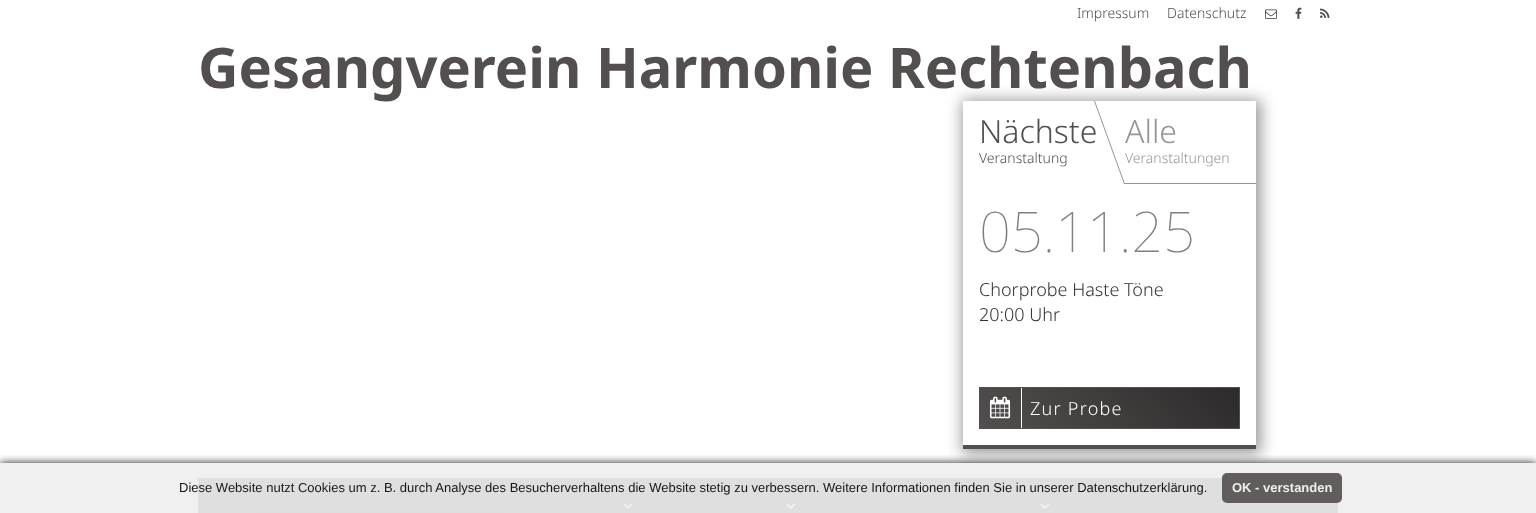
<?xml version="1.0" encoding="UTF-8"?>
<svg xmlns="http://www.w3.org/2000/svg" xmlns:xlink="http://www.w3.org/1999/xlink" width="1536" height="513">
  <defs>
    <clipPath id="clip1"><path d="M 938 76 h 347 v 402 h -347 z m 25 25 h 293 v 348 h -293 z" clip-rule="evenodd" /></clipPath>
    <linearGradient id="g1" gradientUnits="userSpaceOnUse" x1="1035" y1="483" x2="1184" y2="333"><stop offset="0" stop-color="#534f4f" /><stop offset="1" stop-color="#2c2a2a" /></linearGradient>
    <clipPath id="clip2"><rect x="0" y="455" width="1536" height="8" /></clipPath>
  </defs>
  <rect width="100%" height="100%" fill="#ffffff" />
  <image x="1265" y="9" width="12" height="10" xlink:href="image1.png" />
  <image x="1295" y="7" width="7" height="12" xlink:href="image2.png" />
  <image x="1320" y="8" width="10" height="10" xlink:href="image3.png" />
  <g clip-path="url(#clip1)">
    <rect x="962" y="100" width="299" height="354" fill="#000000" fill-opacity="0.4" filter="blur(7.5px)" />
  </g>
  <rect x="963" y="445" width="293" height="4" fill="#534f4f" />
  <rect x="1124" y="183" width="132" height="1" fill="#989595" />
  <rect x="980" y="388" width="259" height="40" fill="url(#g1)" />
  <rect x="979.5" y="387.5" width="260" height="41" fill="none" stroke="#534f4f" />
  <rect x="1021" y="388" width="1" height="40" fill="#ffffff" />
  <image x="989" y="396" width="22" height="23" xlink:href="image4.png" />
  <rect x="198" y="478" width="1140" height="35" fill="#534f4f" />
  <image x="623" y="503" width="10" height="7" xlink:href="image5.png" />
  <image x="786" y="503" width="10" height="7" xlink:href="image5.png" />
  <image x="1040" y="503" width="10" height="7" xlink:href="image5.png" />
  <g clip-path="url(#clip2)">
    <rect y="463" width="1536" height="50" fill="#000000" fill-opacity="0.9" filter="blur(4px)" />
  </g>
  <rect y="463" width="1536" height="50" fill="#eeeeee" fill-opacity="0.9" />
  <rect x="1222" y="473" width="120" height="30" rx="5" fill="#534f4f" fill-opacity="0.9" />
  <text x="1077" y="18" style="font-family: Noto Sans; font-size: 14px; font-weight: 300; fill: #534f4f">Impressum</text>
  <text x="1167" y="18" style="font-family: Noto Sans; font-size: 14px; font-weight: 300; fill: #534f4f">Datenschutz</text>
  <text x="198" y="88" style="font-family: Noto Sans; font-size: 56px; font-weight: bold; fill: #534f4f">Gesangverein Harmonie Rechtenbach</text>
  <text x="979" y="143" style="font-family: Noto Sans; font-size: 32px; font-weight: 300; fill: #534f4f">Nächste</text>
  <text x="979" y="163" style="font-family: Noto Sans; font-size: 14px; font-weight: 300; fill: #534f4f">Veranstaltung</text>
  <path d="M 1094 101 h 1 l 30 83 h -1 z" fill="#989595" />
  <text x="1125" y="143" style="font-family: Noto Sans; font-size: 32px; font-weight: 300; fill: #989595">Alle</text>
  <text x="1125" y="163" style="font-family: Noto Sans; font-size: 14px; font-weight: 300; fill: #989595">Veranstaltungen</text>
  <text x="979" y="252" style="font-family: Noto Sans; font-size: 56px; font-weight: 100; fill: #808080">05.11.25</text>
  <text x="979" y="296" style="font-family: Noto Sans; font-size: 18px; font-weight: 300; fill: #333333">Chorprobe Haste Töne</text>
  <text x="979" y="321" style="font-family: Noto Sans; font-size: 18px; font-weight: 300; fill: #333333">20:00 Uhr</text>
  <text x="1030" y="415" style="font-family: Noto Sans; font-size: 18px; font-weight: 300; letter-spacing: 1.25px; fill: #ffffff">Zur Probe</text>
  <text x="179" y="492" style="font-family: Liberation Sans; font-size: 13px; fill: #161616">Diese Website nutzt Cookies um z. B. durch Analyse des Besucherverhaltens die Website stetig zu verbessern. Weitere Informationen finden Sie in unserer Datenschutzerklärung.</text>
  <text x="1232" y="492" style="font-family: Liberation Sans; font-size: 13px; font-weight: bold; fill: #eeeded">OK - verstanden</text>
</svg>
